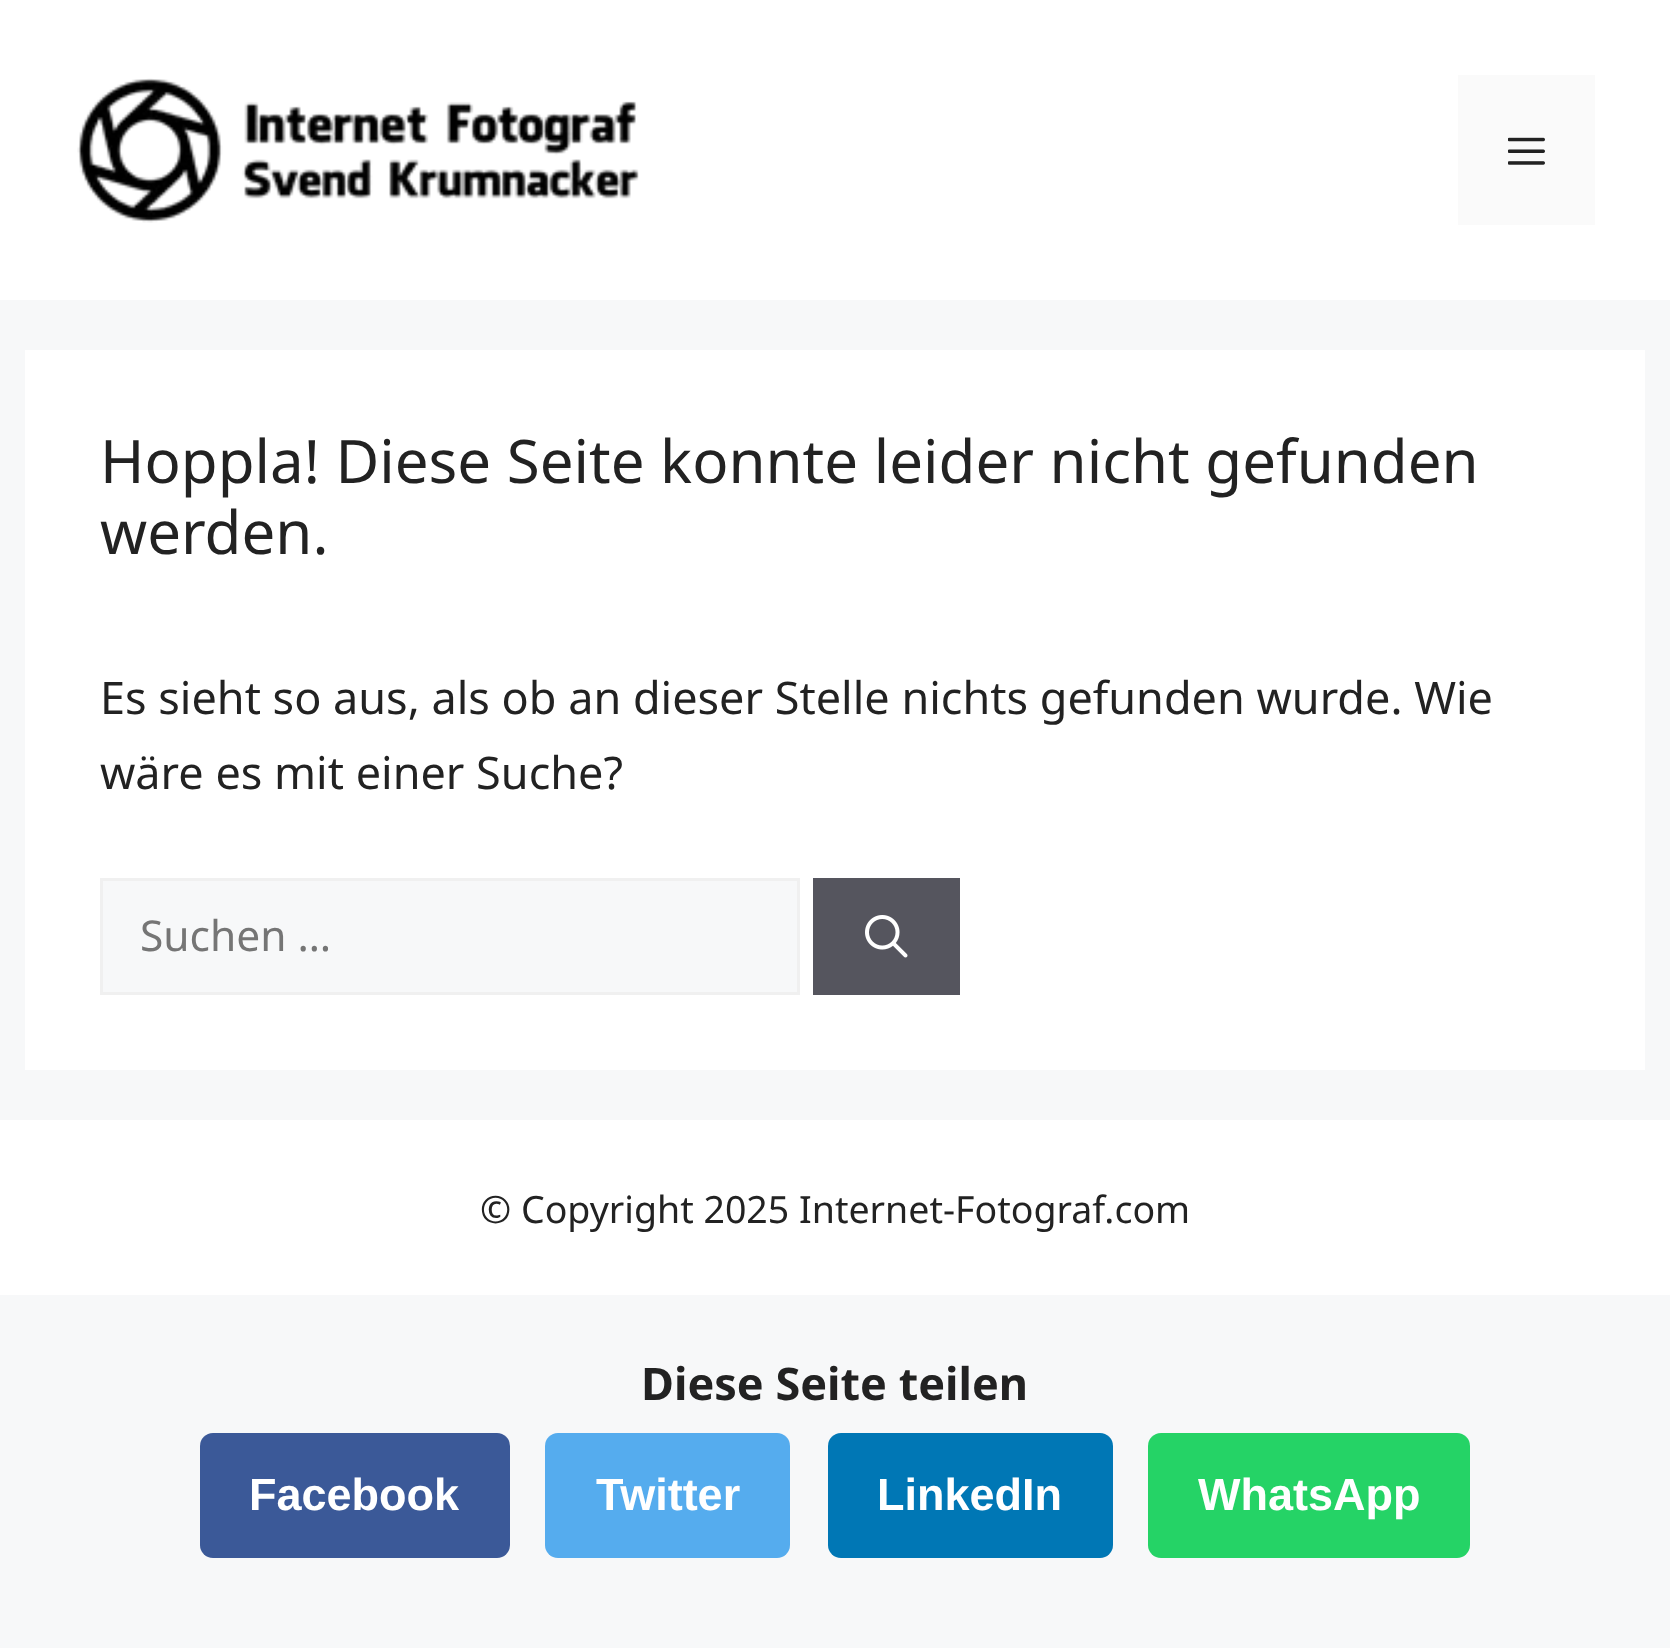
<?xml version="1.0" encoding="UTF-8"?>
<svg xmlns="http://www.w3.org/2000/svg" xmlns:xlink="http://www.w3.org/1999/xlink" width="1670" height="1648">
  <rect width="100%" height="100%" fill="#f7f8f9" />
  <rect width="1670" height="300" fill="#ffffff" />
  <image x="77" y="78" width="562" height="145" xlink:href="image1.png" />
  <rect x="1458" y="75" width="137" height="150" fill="#fafafa" />
  <image x="1508" y="137" width="37" height="28" xlink:href="image2.png" />
  <rect x="25" y="350" width="1620" height="720" fill="#ffffff" />
  <rect x="101.5" y="879.5" width="697" height="114" fill="#f7f8f9" stroke="#f0f0f0" stroke-width="3" />
  <rect x="813" y="878" width="147" height="117" fill="#55555e" />
  <image x="865" y="915" width="43" height="43" xlink:href="image3.png" />
  <rect y="1120" width="1670" height="175" fill="#ffffff" />
  <rect x="200" y="1433" width="310" height="125" rx="13" fill="#3b5998" />
  <rect x="545" y="1433" width="245" height="125" rx="13" fill="#55acee" />
  <rect x="828" y="1433" width="285" height="125" rx="13" fill="#0077b5" />
  <rect x="1148" y="1433" width="322" height="125" rx="13" fill="#25d366" />
  <text x="100" y="483" style="font-family: Noto Sans; font-size: 60px; fill: #222222">Hoppla! Diese Seite konnte leider nicht gefunden</text>
  <text x="100" y="554" style="font-family: Noto Sans; font-size: 60px; fill: #222222">werden.</text>
  <text x="100" y="714" style="font-family: Noto Sans; font-size: 45px; fill: #222222">Es sieht so aus, als ob an dieser Stelle nichts gefunden wurde. Wie</text>
  <text x="100" y="789" style="font-family: Noto Sans; font-size: 45px; fill: #222222">wäre es mit einer Suche?</text>
  <text x="140" y="951" style="font-family: Noto Sans; font-size: 42.5px; fill: #757575">Suchen …</text>
  <text x="480" y="1223" style="font-family: Noto Sans; font-size: 37.5px; fill: #222222">© Copyright 2025 Internet-Fotograf.com</text>
  <text x="641" y="1400" style="font-family: Noto Sans; font-size: 45px; font-weight: bold; fill: #222222">Diese Seite teilen</text>
  <text x="249" y="1510" style="font-family: Liberation Sans; font-size: 45px; font-weight: bold; fill: #ffffff">Facebook</text>
  <text x="596" y="1510" style="font-family: Liberation Sans; font-size: 45px; font-weight: bold; fill: #ffffff">Twitter</text>
  <text x="877" y="1510" style="font-family: Liberation Sans; font-size: 45px; font-weight: bold; fill: #ffffff">LinkedIn</text>
  <text x="1198" y="1510" style="font-family: Liberation Sans; font-size: 45px; font-weight: bold; fill: #ffffff">WhatsApp</text>
</svg>
